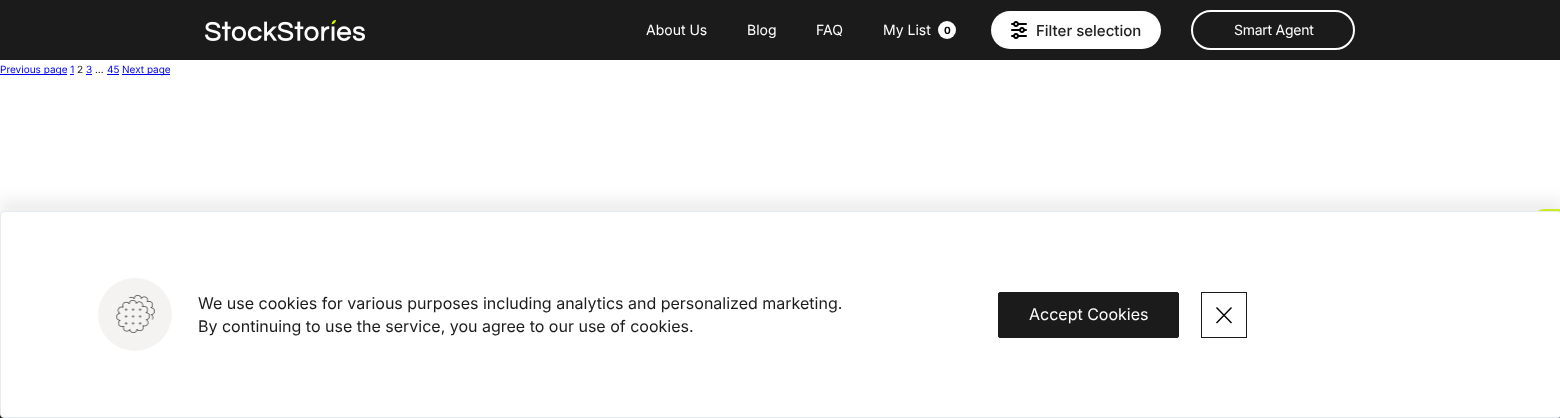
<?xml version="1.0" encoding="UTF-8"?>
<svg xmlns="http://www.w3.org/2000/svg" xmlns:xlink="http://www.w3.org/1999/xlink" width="1560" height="418">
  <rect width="100%" height="100%" fill="#ffffff" />
  <rect width="1560" height="60" fill="#1b1b1b" />
  <image x="205" y="20" width="160" height="21" xlink:href="image1.png" />
  <circle cx="947" cy="30" r="9" fill="#ffffff" />
  <rect x="991" y="11" width="170" height="38" rx="19" fill="#ffffff" />
  <image x="1011" y="21" width="16" height="18" xlink:href="image2.png" />
  <rect x="1192" y="11" width="162" height="38" rx="19" fill="none" stroke="#ffffff" stroke-width="2" />
  <rect y="74" width="67" height="1" fill="#0000ee" />
  <rect x="86" y="74" width="6" height="1" fill="#0000ee" />
  <rect x="107" y="74" width="12" height="1" fill="#0000ee" />
  <rect x="122" y="74" width="48" height="1" fill="#0000ee" />
  <rect x="70" y="74" width="4" height="1" fill="#0000ee" />
  <path d="M 1545 209 h 15 v 30 h -15 c -8.5 0 -15 -6.5 -15 -15 c 0 -8.5 6.5 -15 15 -15 z" fill="#cffa00" />
  <rect y="414" width="1560" height="4" fill="#1b1b1b" />
  <rect y="199" width="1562" height="207" rx="4" fill="#b5b2b2" fill-opacity="0.22" filter="blur(7px)" />
  <rect x="0.5" y="211.5" width="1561" height="206" rx="3.5" fill="#ffffff" stroke="#e3eaf1" />
  <image x="98" y="278" width="74" height="73" xlink:href="image3.png" />
  <rect x="998.5" y="292.5" width="180" height="45" rx="1.5" fill="#1b1b1b" stroke="#1b1b1b" />
  <path d="M 1231.5 323 l -15 -15.5 m 15 0 l -15 15.5" fill="none" stroke="#000000" stroke-width="1.4" stroke-linejoin="round" />
  <rect x="1201.5" y="292.5" width="45" height="45" fill="none" stroke="#1b1b1b" />
  <text x="646" y="35" style="font-family: Inter; font-size: 14px; fill: #ffffff">About Us</text>
  <text x="747" y="35" style="font-family: Inter; font-size: 14px; fill: #ffffff">Blog</text>
  <text x="816" y="35" style="font-family: Inter; font-size: 14px; fill: #ffffff">FAQ</text>
  <text x="883" y="35" style="font-family: Inter; font-size: 14px; fill: #ffffff">My List</text>
  <text x="944" y="34" style="font-family: Inter; font-size: 10px; font-weight: bold; fill: #000000">0</text>
  <text x="1036" y="36" style="font-family: Inter; font-size: 15px; font-weight: 500; fill: #222222">Filter selection</text>
  <text x="1234" y="35" style="font-family: Inter; font-size: 14px; letter-spacing: -0.25px; fill: #ffffff">Smart Agent</text>
  <text x="0" y="73" style="font-family: Inter; font-size: 10px; fill: #0000ee">Previous page 1</text>
  <text x="77" y="73" style="font-family: Inter; font-size: 10px; fill: #222222">2</text>
  <text x="86" y="73" style="font-family: Inter; font-size: 10px; fill: #0000ee">3</text>
  <text x="95" y="73" style="font-family: Inter; font-size: 10px; fill: #222222">…</text>
  <text x="107" y="73" style="font-family: Inter; font-size: 10px; fill: #0000ee">45</text>
  <text x="122" y="73" style="font-family: Inter; font-size: 10px; fill: #0000ee">Next page</text>
  <text x="198" y="309" style="font-family: Inter; font-size: 16px; fill: #1b1b1b">We use cookies for various purposes including analytics and personalized marketing.</text>
  <text x="198" y="332" style="font-family: Inter; font-size: 16px; fill: #1b1b1b">By continuing to use the service, you agree to our use of cookies.</text>
  <text x="1029" y="320" style="font-family: Inter; font-size: 16px; fill: #ffffff">Accept Cookies</text>
</svg>
